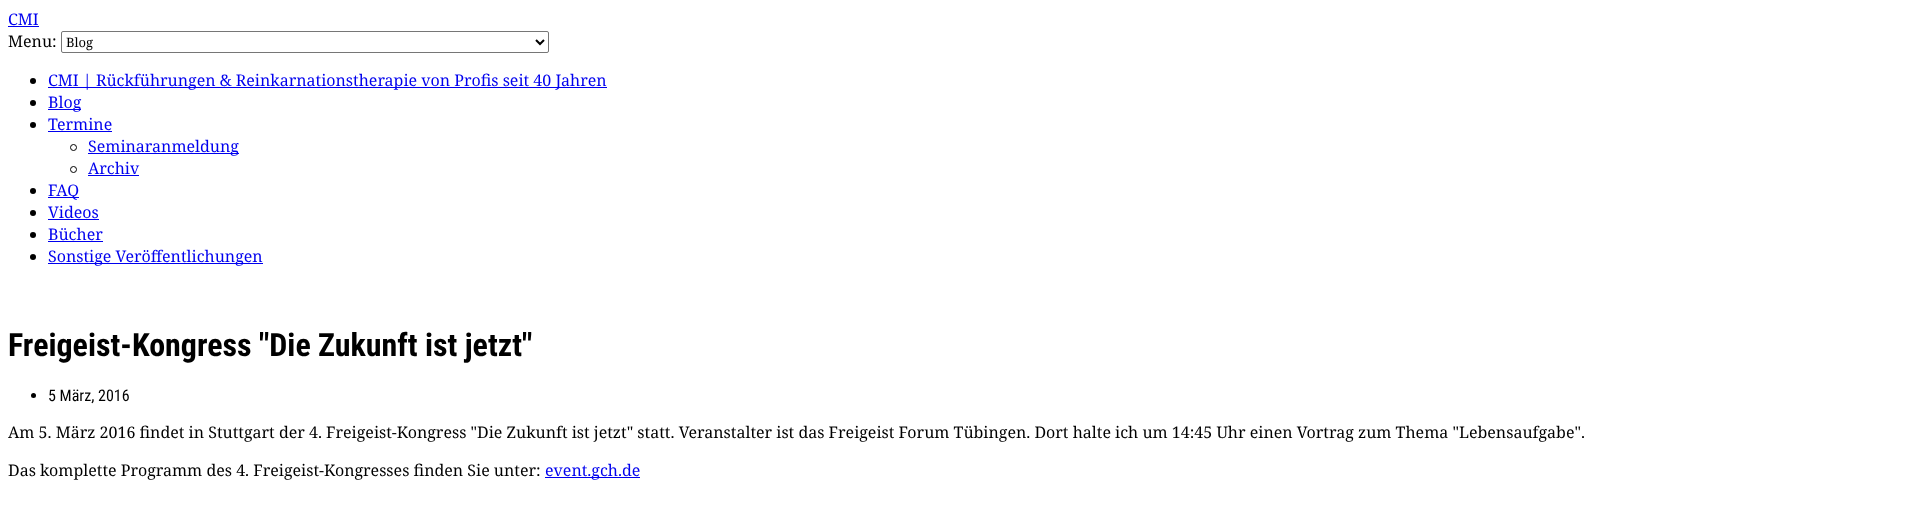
<?xml version="1.0" encoding="UTF-8"?>
<svg xmlns="http://www.w3.org/2000/svg" xmlns:xlink="http://www.w3.org/1999/xlink" width="1923" height="515">
  <rect width="100%" height="100%" fill="#ffffff" />
  <rect x="8" y="26" width="31" height="1" fill="#0000ee" />
  <rect x="61.5" y="31.5" width="487" height="21" rx="1.5" fill="none" stroke="#767676" />
  <path d="M 536 40 l 4 4 l 4 -4" fill="none" stroke="#000000" stroke-width="2" />
  <circle cx="33" cy="81" r="3" fill="#000000" />
  <rect x="48" y="87" width="559" height="1" fill="#0000ee" />
  <circle cx="33" cy="103" r="3" fill="#000000" />
  <rect x="48" y="109" width="33" height="1" fill="#0000ee" />
  <circle cx="33" cy="125" r="3" fill="#000000" />
  <rect x="48" y="131" width="64" height="1" fill="#0000ee" />
  <circle cx="73.5" cy="147.5" r="3" fill="none" stroke="#000000" />
  <rect x="88" y="153" width="151" height="1" fill="#0000ee" />
  <circle cx="73.5" cy="169.5" r="3" fill="none" stroke="#000000" />
  <rect x="88" y="175" width="51" height="1" fill="#0000ee" />
  <circle cx="33" cy="191" r="3" fill="#000000" />
  <rect x="48" y="197" width="31" height="1" fill="#0000ee" />
  <circle cx="33" cy="213" r="3" fill="#000000" />
  <rect x="48" y="219" width="51" height="1" fill="#0000ee" />
  <circle cx="33" cy="235" r="3" fill="#000000" />
  <rect x="48" y="241" width="55" height="1" fill="#0000ee" />
  <circle cx="33" cy="257" r="3" fill="#000000" />
  <rect x="48" y="263" width="215" height="1" fill="#0000ee" />
  <circle cx="33.5" cy="395.5" r="2.5" fill="#000000" />
  <rect x="545" y="477" width="95" height="1" fill="#0000ee" />
  <text x="8" y="25" style="font-family: Noto Serif; font-size: 16px; fill: #0000ee">CMI</text>
  <text x="8" y="47" style="font-family: Noto Serif; font-size: 16px; fill: #000000">Menu:</text>
  <text x="66" y="47" style="font-family: Noto Serif; font-size: 13px; fill: #000000">Blog</text>
  <text x="48" y="86" style="font-family: Noto Serif; font-size: 16px; fill: #0000ee">CMI | Rückführungen &amp; Reinkarnationstherapie von Profis seit 40 Jahren</text>
  <text x="48" y="108" style="font-family: Noto Serif; font-size: 16px; fill: #0000ee">Blog</text>
  <text x="48" y="130" style="font-family: Noto Serif; font-size: 16px; fill: #0000ee">Termine</text>
  <text x="88" y="152" style="font-family: Noto Serif; font-size: 16px; fill: #0000ee">Seminaranmeldung</text>
  <text x="88" y="174" style="font-family: Noto Serif; font-size: 16px; fill: #0000ee">Archiv</text>
  <text x="48" y="196" style="font-family: Noto Serif; font-size: 16px; fill: #0000ee">FAQ</text>
  <text x="48" y="218" style="font-family: Noto Serif; font-size: 16px; fill: #0000ee">Videos</text>
  <text x="48" y="240" style="font-family: Noto Serif; font-size: 16px; fill: #0000ee">Bücher</text>
  <text x="48" y="262" style="font-family: Noto Serif; font-size: 16px; fill: #0000ee">Sonstige Veröffentlichungen</text>
  <text x="8" y="356" style="font-family: Roboto Condensed; font-size: 32px; font-weight: bold; fill: #000000">Freigeist-Kongress "Die Zukunft ist jetzt"</text>
  <text x="48" y="401" style="font-family: Roboto Condensed; font-size: 16px; fill: #000000">5 März, 2016</text>
  <text x="8" y="438" style="font-family: Noto Serif; font-size: 16px; fill: #000000">Am 5. März 2016 findet in Stuttgart der 4. Freigeist-Kongress "Die Zukunft ist jetzt" statt. Veranstalter ist das Freigeist Forum Tübingen. Dort halte ich um 14:45 Uhr einen Vortrag zum Thema "Lebensaufgabe".</text>
  <text x="8" y="476" style="font-family: Noto Serif; font-size: 16px; fill: #000000">Das komplette Programm des 4. Freigeist-Kongresses finden Sie unter:</text>
  <text x="545" y="476" style="font-family: Noto Serif; font-size: 16px; fill: #0000ee">event.gch.de</text>
</svg>
